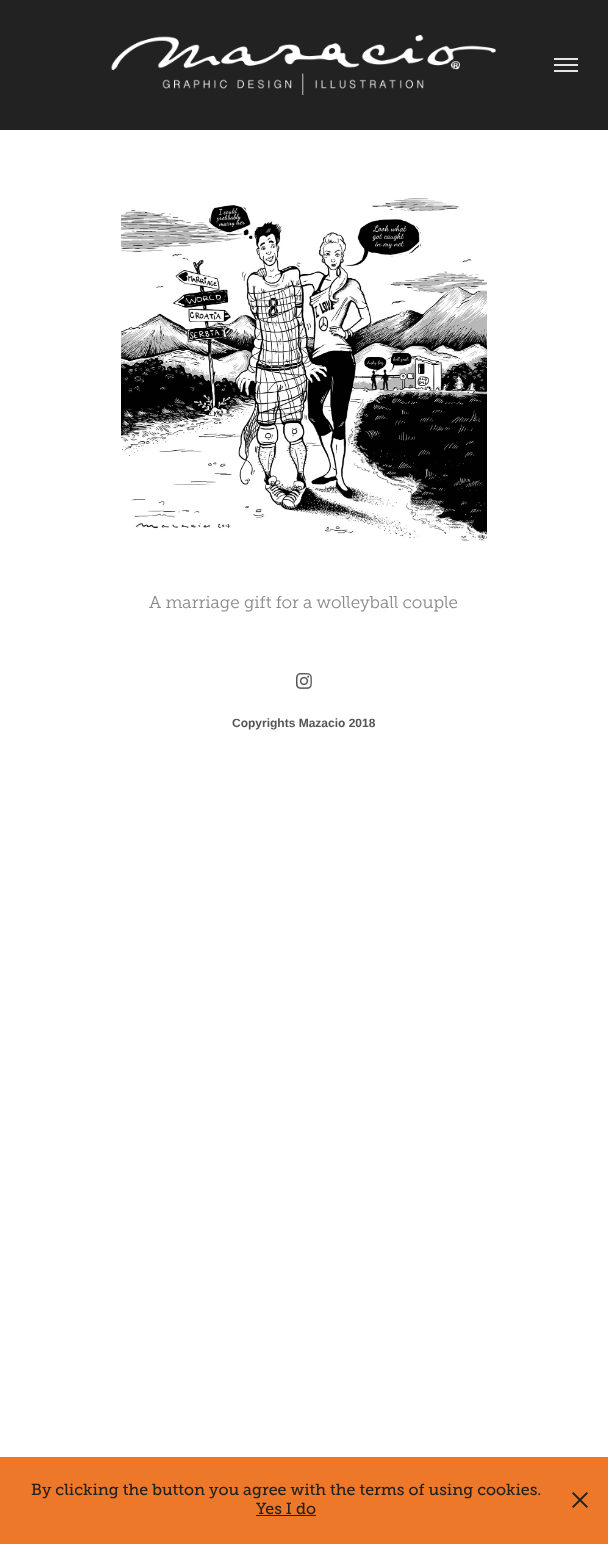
<?xml version="1.0" encoding="UTF-8"?>
<svg xmlns="http://www.w3.org/2000/svg" xmlns:xlink="http://www.w3.org/1999/xlink" width="608" height="1544">
  <rect width="100%" height="100%" fill="#ffffff" />
  <rect width="608" height="130" fill="#222222" />
  <image x="111" y="35" width="385" height="60" xlink:href="image1.png" />
  <rect x="554" y="58" width="24" height="2" fill="#e5e5e5" />
  <rect x="554" y="64" width="24" height="2" fill="#e5e5e5" />
  <rect x="554" y="70" width="24" height="2" fill="#e5e5e5" />
  <image x="121" y="198" width="366" height="344" xlink:href="image2.png" />
  <image x="296" y="673" width="16" height="16" xlink:href="image3.png" />
  <rect y="1457" width="608" height="87" fill="#ed782a" />
  <rect x="256" y="1515" width="60" height="1" fill="#212121" />
  <image x="572" y="1492" width="16" height="16" xlink:href="image4.png" />
  <text x="149" y="608" style="font-family: Museo Slab; font-size: 17px; font-weight: 300; fill: #888888">A marriage gift for a wolleyball couple</text>
  <text x="232" y="727" style="font-family: Liberation Sans; font-size: 12px; font-weight: bold; fill: #555555">Copyrights Mazacio 2018</text>
  <text x="31" y="1495" style="font-family: Museo Slab; font-size: 16px; fill: #212121">By clicking the button you agree with the terms of using cookies.</text>
  <text x="256" y="1514" style="font-family: Museo Slab; font-size: 16px; fill: #212121">Yes I do</text>
</svg>
